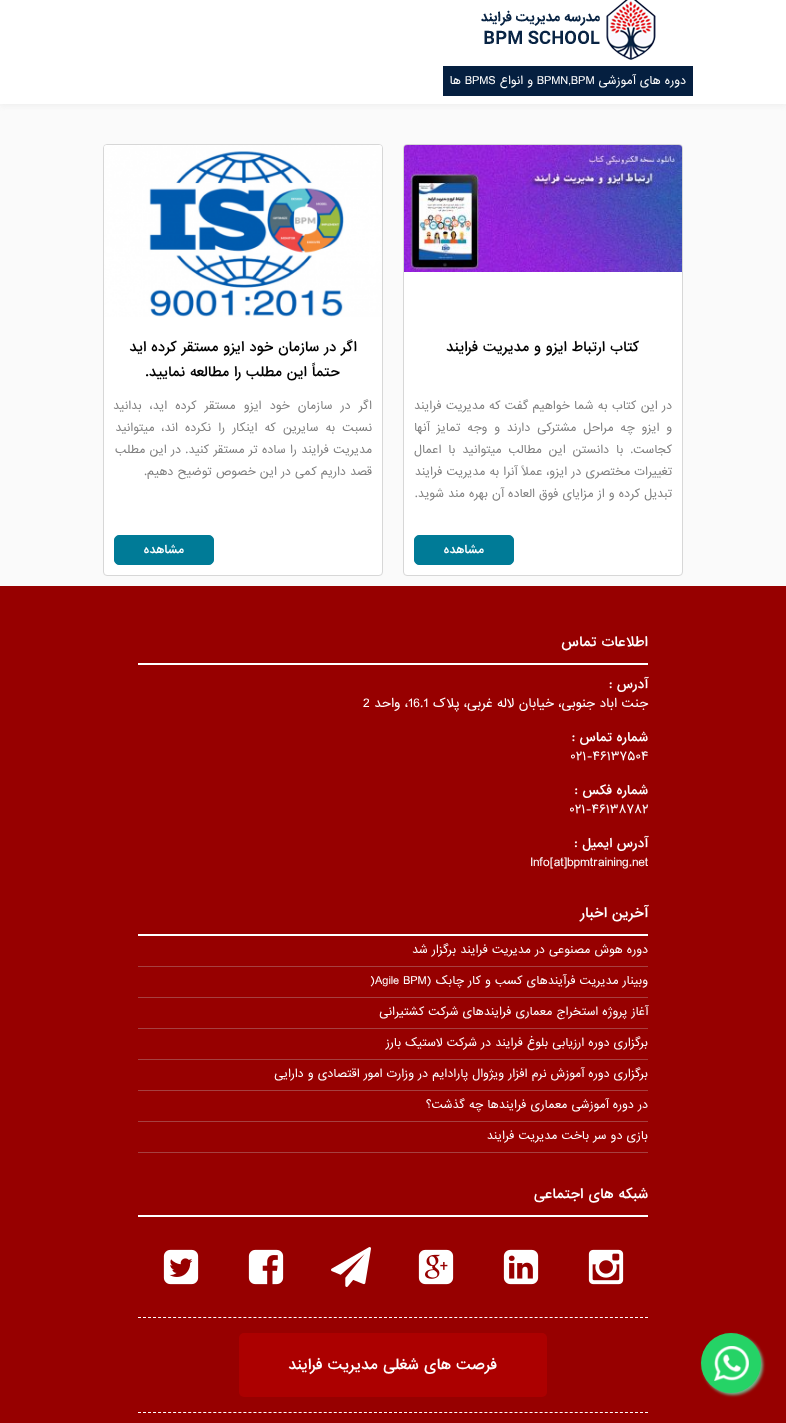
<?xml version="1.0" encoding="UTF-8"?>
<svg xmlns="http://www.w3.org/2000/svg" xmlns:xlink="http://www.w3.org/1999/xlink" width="786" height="1423">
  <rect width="100%" height="100%" fill="#fafafa" />
  <rect y="586" width="786" height="837" fill="#970000" />
  <rect x="703" y="1335" width="60" height="60" rx="30" fill="#77b18d" filter="blur(1.5px)" />
  <circle cx="731" cy="1363" r="30" fill="#25d366" />
  <image x="714" y="1346" width="35" height="35" xlink:href="image1.png" />
  <rect y="-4" width="786" height="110" fill="#efefef" filter="blur(2.5px)" />
  <rect width="786" height="104" fill="#ffffff" />
  <image x="481" y="0" width="175" height="60" xlink:href="image2.png" />
  <rect x="443" y="66" width="250" height="30" fill="#051f40" />
  <rect x="403.5" y="144.5" width="279" height="431" rx="3.5" fill="#ffffff" stroke="#d7d7d7" />
  <image x="404" y="145" width="278" height="127" xlink:href="image3.png" />
  <rect x="414.5" y="535.5" width="99" height="29" rx="4.5" fill="#007b97" stroke="#007b97" />
  <rect x="103.5" y="144.5" width="279" height="431" rx="3.5" fill="#ffffff" stroke="#d7d7d7" />
  <image x="104" y="145" width="278" height="172" xlink:href="image4.png" />
  <rect x="114.5" y="535.5" width="99" height="29" rx="4.5" fill="#007b97" stroke="#007b97" />
  <rect x="138" y="663" width="510" height="2" fill="#ffffff" />
  <rect x="138" y="934" width="510" height="2" fill="#ffffff" />
  <rect x="138" y="966" width="510" height="1" fill="#a64040" />
  <rect x="138" y="997" width="510" height="1" fill="#a64040" />
  <rect x="138" y="1028" width="510" height="1" fill="#a64040" />
  <rect x="138" y="1059" width="510" height="1" fill="#a64040" />
  <rect x="138" y="1090" width="510" height="1" fill="#a64040" />
  <rect x="138" y="1121" width="510" height="1" fill="#a64040" />
  <rect x="138" y="1152" width="510" height="1" fill="#a64040" />
  <rect x="138" y="1215" width="510" height="2" fill="#ffffff" />
  <image x="588" y="1249" width="36" height="36" xlink:href="image5.png" />
  <image x="503" y="1249" width="36" height="36" xlink:href="image6.png" />
  <image x="418" y="1249" width="36" height="36" xlink:href="image7.png" />
  <image x="331" y="1247" width="40" height="40" xlink:href="image8.png" />
  <image x="248" y="1249" width="36" height="36" xlink:href="image9.png" />
  <image x="163" y="1249" width="36" height="36" xlink:href="image10.png" />
  <path d="M 138 1317.5 h 510" fill="none" stroke="#ffffff" stroke-dasharray="3 2.02" />
  <path d="M 138 1412.5 h 510" fill="none" stroke="#ffffff" stroke-dasharray="3 2.02" />
  <rect x="239" y="1333" width="308" height="64" rx="5" fill="#ac0000" />
  <text x="686" y="84" style="font-family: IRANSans; font-size: 11px; direction: rtl; fill: #ffffff">دوره های آموزشی</text>
  <text x="537" y="84" style="font-family: IRANSans; font-size: 11px; fill: #ffffff">BPMN,BPM</text>
  <text x="533" y="84" style="font-family: IRANSans; font-size: 11px; direction: rtl; fill: #ffffff">و انواع</text>
  <text x="465" y="84" style="font-family: IRANSans; font-size: 11px; fill: #ffffff">BPMS</text>
  <text x="461" y="84" style="font-family: IRANSans; font-size: 11px; direction: rtl; fill: #ffffff">ها</text>
  <text x="639" y="351" style="font-family: IRANSans; font-size: 13px; font-weight: 500; direction: rtl; fill: #000000">کتاب ارتباط ایزو و مدیریت فرایند</text>
  <text x="672" y="409" word-spacing="0.25" style="font-family: IRANSans; font-size: 11px; direction: rtl; fill: #808080">در این کتاب به شما خواهیم گفت که مدیریت فرایند</text>
  <text x="672" y="431" word-spacing="2.75" style="font-family: IRANSans; font-size: 11px; direction: rtl; fill: #808080">و ایزو چه مراحل مشترکی دارند و وجه تمایز آنها</text>
  <text x="672" y="453" word-spacing="2.75" style="font-family: IRANSans; font-size: 11px; direction: rtl; fill: #808080">کجاست. با دانستن این مطالب میتوانید با اعمال</text>
  <text x="672" y="475" style="font-family: IRANSans; font-size: 11px; direction: rtl; fill: #808080">تغییرات مختصری در ایزو، عملاً آنرا به مدیریت فرایند</text>
  <text x="672" y="497" style="font-family: IRANSans; font-size: 11px; direction: rtl; fill: #808080">تبدیل کرده و از مزایای فوق العاده آن بهره مند شوید.</text>
  <text x="484" y="553" style="font-family: IRANSans; font-size: 11px; font-weight: 500; direction: rtl; fill: #ffffff">مشاهده</text>
  <text x="357" y="351" style="font-family: IRANSans; font-size: 13px; font-weight: 500; direction: rtl; fill: #000000">اگر در سازمان خود ایزو مستقر کرده اید</text>
  <text x="340" y="376" style="font-family: IRANSans; font-size: 13px; font-weight: 500; direction: rtl; fill: #000000">حتماً این مطلب را مطالعه نمایید.</text>
  <text x="372" y="409" word-spacing="4" style="font-family: IRANSans; font-size: 11px; direction: rtl; fill: #808080">اگر در سازمان خود ایزو مستقر کرده اید، بدانید</text>
  <text x="372" y="431" word-spacing="3" style="font-family: IRANSans; font-size: 11px; direction: rtl; fill: #808080">نسبت به سایرین که اینکار را نکرده اند، میتوانید</text>
  <text x="372" y="453" word-spacing="0.25" style="font-family: IRANSans; font-size: 11px; direction: rtl; fill: #808080">مدیریت فرایند را ساده تر مستقر کنید. در این مطلب</text>
  <text x="372" y="475" style="font-family: IRANSans; font-size: 11px; direction: rtl; fill: #808080">قصد داریم کمی در این خصوص توضیح دهیم.</text>
  <text x="184" y="553" style="font-family: IRANSans; font-size: 11px; font-weight: 500; direction: rtl; fill: #ffffff">مشاهده</text>
  <text x="648" y="646" style="font-family: IRANSans; font-size: 13px; font-weight: 500; direction: rtl; fill: #ffffff">اطلاعات تماس</text>
  <text x="648" y="688" style="font-family: IRANSans; font-size: 12px; font-weight: 500; direction: rtl; fill: #ffffff">آدرس :</text>
  <text x="648" y="707" style="font-family: IRANSans; font-size: 12px; direction: rtl; fill: #ffffff">جنت اباد جنوبی، خیابان لاله غربی، پلاک</text>
  <text x="408" y="707" style="font-family: IRANSans; font-size: 12px; fill: #ffffff">16.1</text>
  <text x="408" y="707" style="font-family: IRANSans; font-size: 12px; direction: rtl; fill: #ffffff">، واحد</text>
  <text x="363" y="707" style="font-family: IRANSans; font-size: 12px; fill: #ffffff">2</text>
  <text x="648" y="741" style="font-family: IRANSans; font-size: 12px; font-weight: 500; direction: rtl; fill: #ffffff">شماره تماس :</text>
  <text x="570" y="760" style="font-family: IRANSans; font-size: 12px; fill: #ffffff">۰۲۱-۴۶۱۳۷۵۰۴</text>
  <text x="648" y="794" style="font-family: IRANSans; font-size: 12px; font-weight: 500; direction: rtl; fill: #ffffff">شماره فکس :</text>
  <text x="569" y="813" style="font-family: IRANSans; font-size: 12px; fill: #ffffff">۰۲۱-۴۶۱۳۸۷۸۲</text>
  <text x="648" y="847" style="font-family: IRANSans; font-size: 12px; font-weight: 500; direction: rtl; fill: #ffffff">آدرس ایمیل :</text>
  <text x="530" y="866" style="font-family: IRANSans; font-size: 12px; fill: #ffffff">Info[at]bpmtraining.net</text>
  <text x="648" y="917" style="font-family: IRANSans; font-size: 13px; font-weight: 500; direction: rtl; fill: #ffffff">آخرین اخبار</text>
  <text x="648" y="953" style="font-family: IRANSans; font-size: 11px; direction: rtl; fill: #ffffff">دوره هوش مصنوعی در مدیریت فرایند برگزار شد</text>
  <text x="648" y="984" style="font-family: IRANSans; font-size: 11px; direction: rtl; fill: #ffffff">وبینار مدیریت فرآیندهای کسب و کار چابک (</text>
  <text x="375" y="984" style="font-family: IRANSans; font-size: 11px; fill: #ffffff">Agile BPM</text>
  <text x="370" y="984" style="font-family: IRANSans; font-size: 11px; fill: #ffffff">)</text>
  <text x="648" y="1015" style="font-family: IRANSans; font-size: 11px; direction: rtl; fill: #ffffff">آغاز پروژه استخراج معماری فرایندهای شرکت کشتیرانی</text>
  <text x="648" y="1046" style="font-family: IRANSans; font-size: 11px; direction: rtl; fill: #ffffff">برگزاری دوره ارزیابی بلوغ فرایند در شرکت لاستیک بارز</text>
  <text x="648" y="1077" style="font-family: IRANSans; font-size: 11px; direction: rtl; fill: #ffffff">برگزاری دوره آموزش نرم ‌افزار ویژوال پارادایم در وزارت امور اقتصادی و دارایی</text>
  <text x="648" y="1108" style="font-family: IRANSans; font-size: 11px; direction: rtl; fill: #ffffff">در دوره آموزشی معماری فرایندها چه گذشت؟</text>
  <text x="648" y="1139" style="font-family: IRANSans; font-size: 11px; direction: rtl; fill: #ffffff">بازی دو سر باخت مدیریت فرایند</text>
  <text x="648" y="1198" style="font-family: IRANSans; font-size: 13px; font-weight: 500; direction: rtl; fill: #ffffff">شبکه های اجتماعی</text>
  <text x="497" y="1369" style="font-family: IRANSans; font-size: 14px; font-weight: 500; direction: rtl; fill: #ffffff">فرصت های شغلی مدیریت فرایند</text>
</svg>
